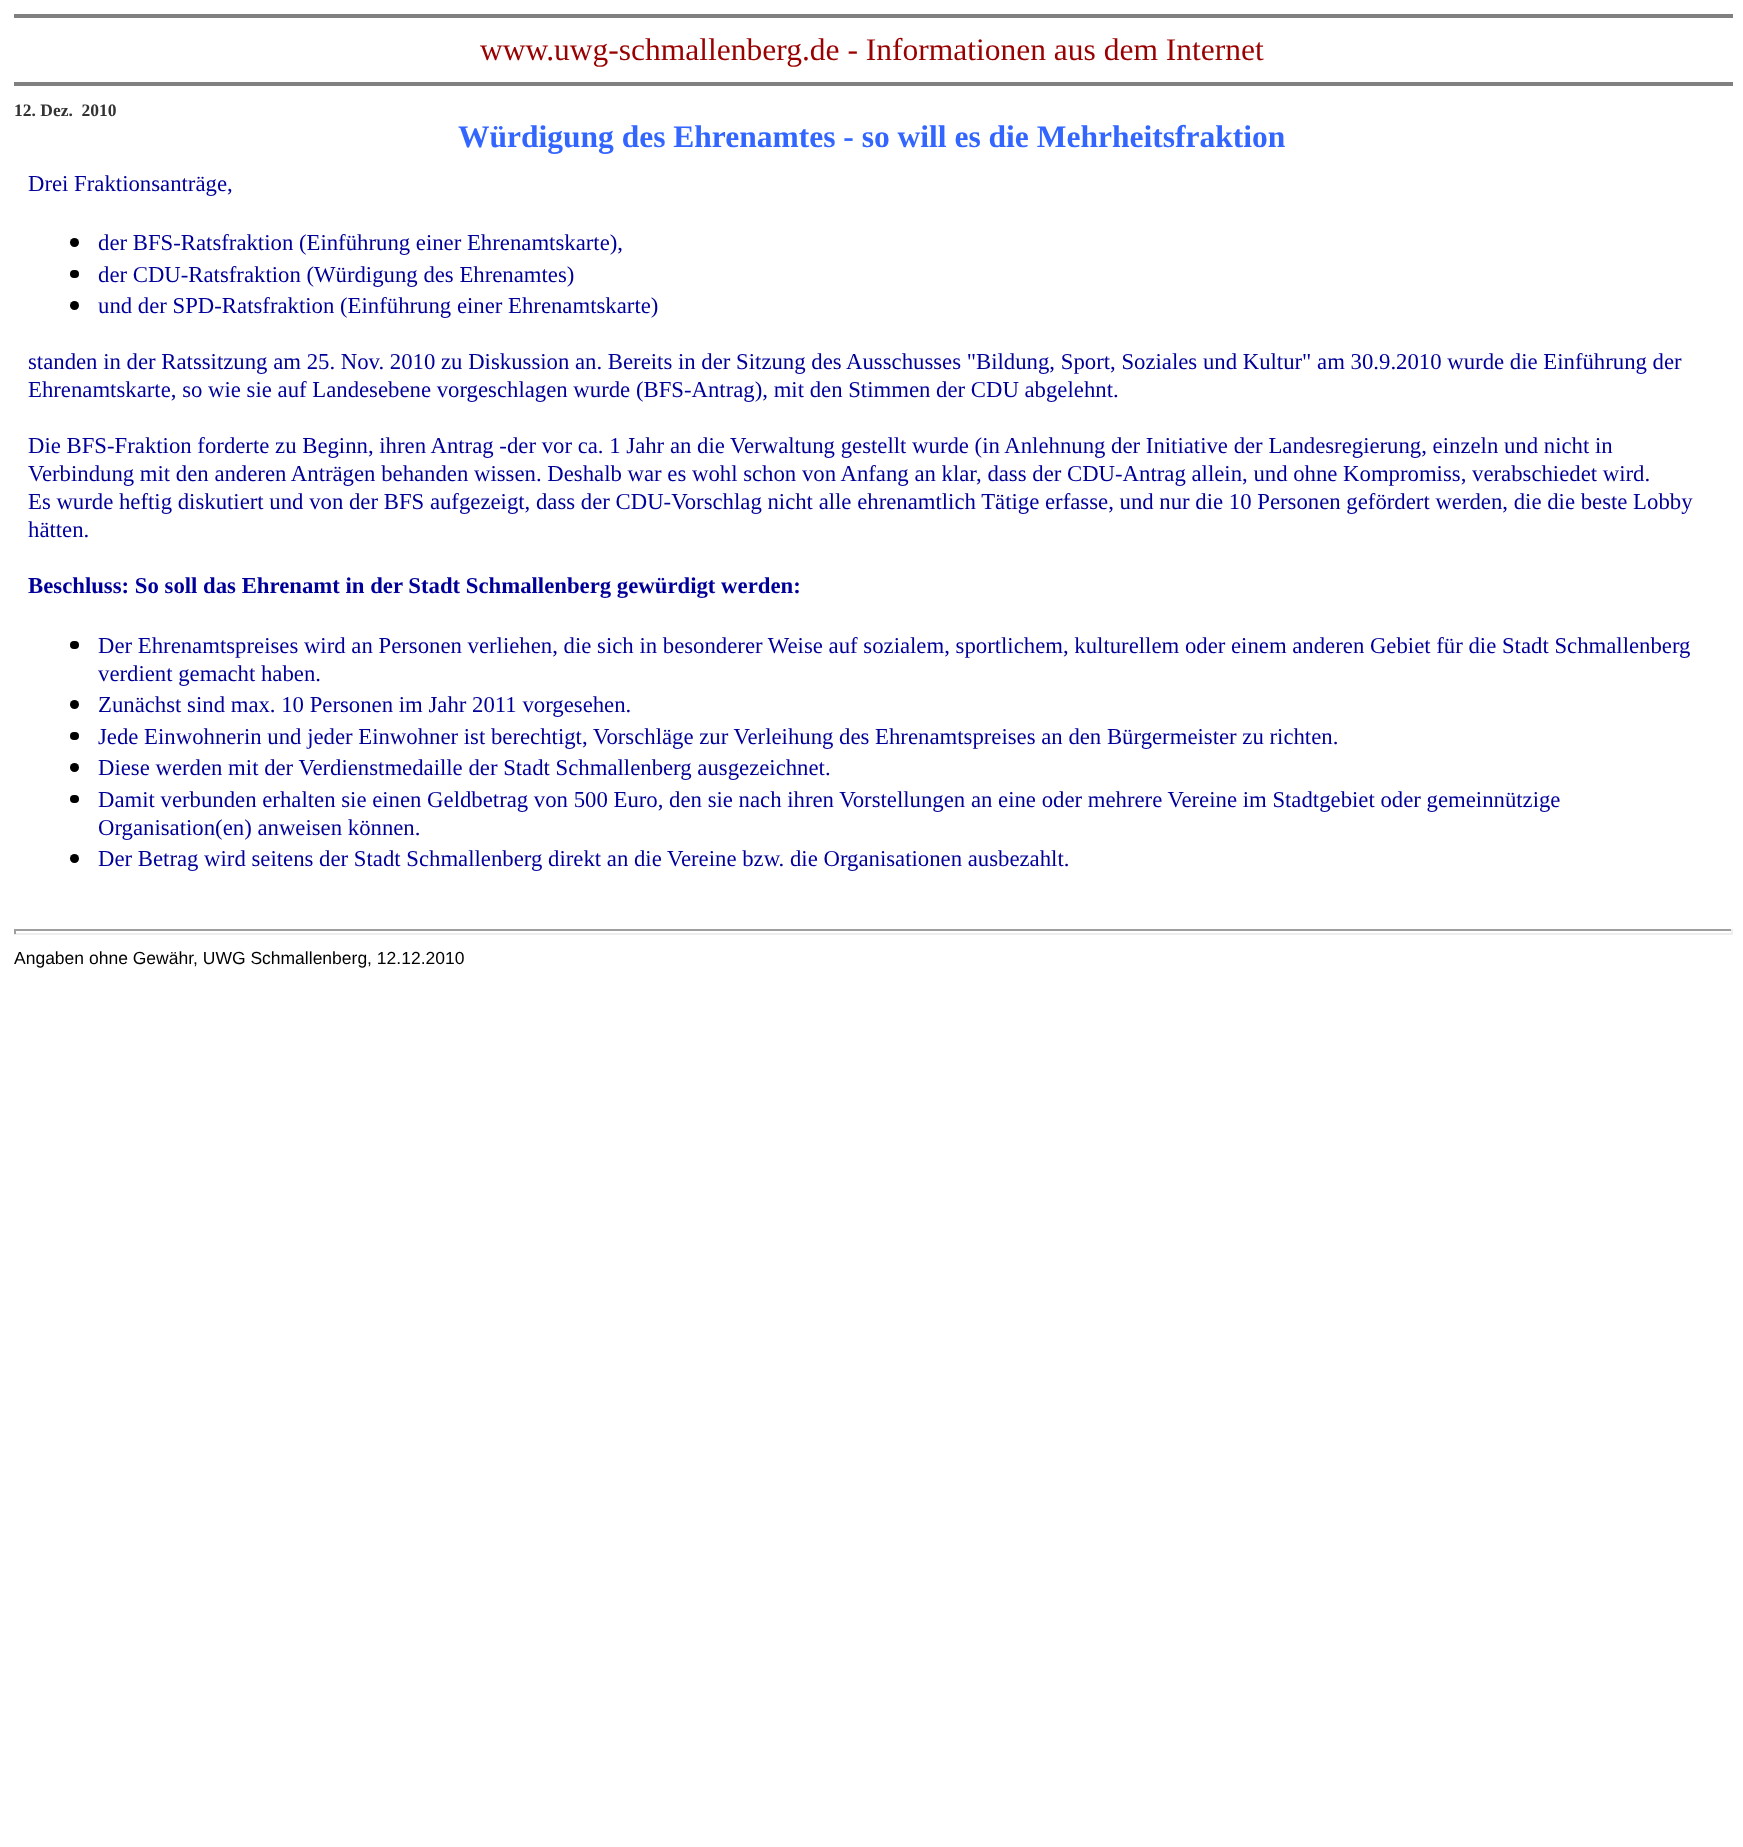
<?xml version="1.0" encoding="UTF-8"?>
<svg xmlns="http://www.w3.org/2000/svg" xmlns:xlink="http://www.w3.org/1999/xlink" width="1743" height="1847">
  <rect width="100%" height="100%" fill="#ffffff" />
  <rect x="14" y="14" width="1719" height="4" fill="#808080" />
  <rect x="14" y="82" width="1719" height="4" fill="#808080" />
  <circle cx="74.5" cy="242.5" r="4.5" fill="#000000" />
  <rect x="70" y="270" width="9" height="8" rx="4" fill="#000000" />
  <circle cx="74.5" cy="305.5" r="4.5" fill="#000000" />
  <rect x="70" y="641" width="9" height="8" rx="4" fill="#000000" />
  <circle cx="74.5" cy="704.5" r="4.5" fill="#000000" />
  <rect x="70" y="732" width="9" height="8" rx="4" fill="#000000" />
  <circle cx="74.5" cy="767.5" r="4.5" fill="#000000" />
  <rect x="70" y="795" width="9" height="8" rx="4" fill="#000000" />
  <circle cx="74.5" cy="858.5" r="4.5" fill="#000000" />
  <rect x="14" y="929" width="1719" height="2" fill="#9f9f9f" />
  <rect x="1731" y="929" width="2" height="5" fill="#eeeeee" />
  <rect x="14" y="933" width="1719" height="2" fill="#eeeeee" />
  <rect x="14" y="929" width="2" height="5" fill="#9f9f9f" />
  <text x="480" y="60" style="font-family: Liberation Serif; font-size: 31.5px; fill: #990000">www.uwg-schmallenberg.de - Informationen aus dem Internet</text>
  <text x="14" y="116" style="font-family: Liberation Serif; font-size: 17.5px; font-weight: bold; fill: #333333" xml:space="preserve">12. Dez.  2010</text>
  <text x="458" y="147" style="font-family: Liberation Serif; font-size: 31.5px; font-weight: bold; fill: #3366ff">Würdigung des Ehrenamtes - so will es die Mehrheitsfraktion</text>
  <text x="28" y="191" style="font-family: Liberation Serif; font-size: 22.75px; fill: #000099">Drei Fraktionsanträge,</text>
  <text x="98" y="250" style="font-family: Liberation Serif; font-size: 22.75px; fill: #000099">der BFS-Ratsfraktion (Einführung einer Ehrenamtskarte),</text>
  <text x="98" y="282" style="font-family: Liberation Serif; font-size: 22.75px; fill: #000099">der CDU-Ratsfraktion (Würdigung des Ehrenamtes)</text>
  <text x="98" y="313" style="font-family: Liberation Serif; font-size: 22.75px; fill: #000099">und der SPD-Ratsfraktion (Einführung einer Ehrenamtskarte)</text>
  <text x="28" y="369" style="font-family: Liberation Serif; font-size: 22.75px; fill: #000099">standen in der Ratssitzung am 25. Nov. 2010 zu Diskussion an. Bereits in der Sitzung des Ausschusses "Bildung, Sport, Soziales und Kultur" am 30.9.2010 wurde die Einführung der</text>
  <text x="28" y="397" style="font-family: Liberation Serif; font-size: 22.75px; fill: #000099">Ehrenamtskarte, so wie sie auf Landesebene vorgeschlagen wurde (BFS-Antrag), mit den Stimmen der CDU abgelehnt.</text>
  <text x="28" y="453" style="font-family: Liberation Serif; font-size: 22.75px; fill: #000099">Die BFS-Fraktion forderte zu Beginn, ihren Antrag -der vor ca. 1 Jahr an die Verwaltung gestellt wurde (in Anlehnung der Initiative der Landesregierung, einzeln und nicht in</text>
  <text x="28" y="481" style="font-family: Liberation Serif; font-size: 22.75px; fill: #000099">Verbindung mit den anderen Anträgen behanden wissen. Deshalb war es wohl schon von Anfang an klar, dass der CDU-Antrag allein, und ohne Kompromiss, verabschiedet wird.</text>
  <text x="28" y="509" style="font-family: Liberation Serif; font-size: 22.75px; fill: #000099">Es wurde heftig diskutiert und von der BFS aufgezeigt, dass der CDU-Vorschlag nicht alle ehrenamtlich Tätige erfasse, und nur die 10 Personen gefördert werden, die die beste Lobby</text>
  <text x="28" y="537" style="font-family: Liberation Serif; font-size: 22.75px; fill: #000099">hätten.</text>
  <text x="28" y="593" style="font-family: Liberation Serif; font-size: 22.75px; font-weight: bold; fill: #000099">Beschluss: So soll das Ehrenamt in der Stadt Schmallenberg gewürdigt werden:</text>
  <text x="98" y="653" style="font-family: Liberation Serif; font-size: 22.75px; fill: #000099">Der Ehrenamtspreises wird an Personen verliehen, die sich in besonderer Weise auf sozialem, sportlichem, kulturellem oder einem anderen Gebiet für die Stadt Schmallenberg</text>
  <text x="98" y="681" style="font-family: Liberation Serif; font-size: 22.75px; fill: #000099">verdient gemacht haben.</text>
  <text x="98" y="712" style="font-family: Liberation Serif; font-size: 22.75px; fill: #000099">Zunächst sind max. 10 Personen im Jahr 2011 vorgesehen.</text>
  <text x="98" y="744" style="font-family: Liberation Serif; font-size: 22.75px; fill: #000099">Jede Einwohnerin und jeder Einwohner ist berechtigt, Vorschläge zur Verleihung des Ehrenamtspreises an den Bürgermeister zu richten.</text>
  <text x="98" y="775" style="font-family: Liberation Serif; font-size: 22.75px; fill: #000099">Diese werden mit der Verdienstmedaille der Stadt Schmallenberg ausgezeichnet.</text>
  <text x="98" y="807" style="font-family: Liberation Serif; font-size: 22.75px; fill: #000099">Damit verbunden erhalten sie einen Geldbetrag von 500 Euro, den sie nach ihren Vorstellungen an eine oder mehrere Vereine im Stadtgebiet oder gemeinnützige</text>
  <text x="98" y="835" style="font-family: Liberation Serif; font-size: 22.75px; fill: #000099">Organisation(en) anweisen können.</text>
  <text x="98" y="866" style="font-family: Liberation Serif; font-size: 22.75px; fill: #000099">Der Betrag wird seitens der Stadt Schmallenberg direkt an die Vereine bzw. die Organisationen ausbezahlt.</text>
  <text x="14" y="964" style="font-family: Liberation Sans; font-size: 17.5px; fill: #000000">Angaben ohne Gewähr, UWG Schmallenberg, 12.12.2010</text>
</svg>
